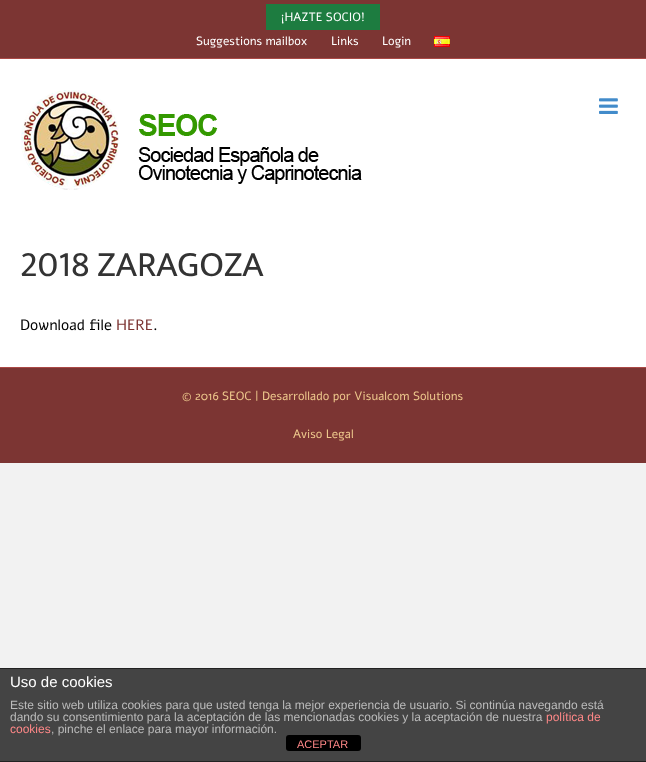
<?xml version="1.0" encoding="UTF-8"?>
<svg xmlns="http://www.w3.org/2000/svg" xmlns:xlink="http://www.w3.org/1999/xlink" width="646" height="762">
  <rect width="100%" height="100%" fill="#f2f2f2" />
  <rect width="646" height="58" fill="#7c3533" />
  <rect y="58" width="646" height="1" fill="#ab4946" />
  <rect x="266" y="4" width="114" height="26" fill="#1d7c40" />
  <image x="434" y="36" width="16" height="11" xlink:href="image1.png" />
  <rect y="59" width="646" height="308" fill="#ffffff" />
  <image x="21" y="90" width="341" height="100" xlink:href="image2.png" />
  <image x="599" y="98" width="19" height="16" xlink:href="image3.png" />
  <rect y="368" width="646" height="95" fill="#7c3533" />
  <rect y="367" width="646" height="1" fill="#ab4946" />
  <rect y="669" width="646" height="92" fill="#444444" />
  <rect y="668" width="646" height="1" fill="#222222" />
  <rect y="761" width="646" height="1" fill="#222222" />
  <rect x="286" y="735" width="75" height="16" rx="3" fill="#000000" />
  <text x="281" y="21" style="font-family: Alef; font-size: 12px; fill: #ffffff">¡HAZTE SOCIO!</text>
  <text x="196" y="45" style="font-family: Alef; font-size: 12px; fill: #ffffff">Suggestions mailbox</text>
  <text x="331" y="45" style="font-family: Alef; font-size: 12px; fill: #ffffff">Links</text>
  <text x="382" y="45" style="font-family: Alef; font-size: 12px; fill: #ffffff">Login</text>
  <text x="20" y="276" style="font-family: Ek Mukta; font-size: 36px; fill: #333333">2018 ZARAGOZA</text>
  <text x="20" y="330" style="font-family: Alef; font-size: 15px; fill: #000000">Download file</text>
  <text x="116" y="330" style="font-family: Alef; font-size: 15px; fill: #7c3533">HERE</text>
  <text x="153" y="330" style="font-family: Alef; font-size: 15px; fill: #000000">.</text>
  <text x="182" y="400" style="font-family: Alef; font-size: 12px; fill: #edc78c">© 2016 SEOC | Desarrollado por Visualcom Solutions</text>
  <text x="293" y="438" style="font-family: Alef; font-size: 12px; fill: #edc78c">Aviso Legal</text>
  <text x="10" y="687" style="font-family: Liberation Sans; font-size: 15px; fill: #ffffff">Uso de cookies</text>
  <text x="10" y="709" style="font-family: Liberation Sans; font-size: 12px; fill: #bbbbbb">Este sitio web utiliza cookies para que usted tenga la mejor experiencia de usuario. Si continúa navegando está</text>
  <text x="10" y="721" style="font-family: Liberation Sans; font-size: 12px; fill: #bbbbbb">dando su consentimiento para la aceptación de las mencionadas cookies y la aceptación de nuestra</text>
  <text x="546" y="721" style="font-family: Liberation Sans; font-size: 12px; fill: #ff8888">política de</text>
  <text x="10" y="733" style="font-family: Liberation Sans; font-size: 12px; fill: #ff8888">cookies</text>
  <text x="51" y="733" style="font-family: Liberation Sans; font-size: 12px; fill: #bbbbbb">, pinche el enlace para mayor información.</text>
  <text x="297" y="748" style="font-family: Liberation Sans; font-size: 11px; fill: #ff8888">ACEPTAR</text>
</svg>
